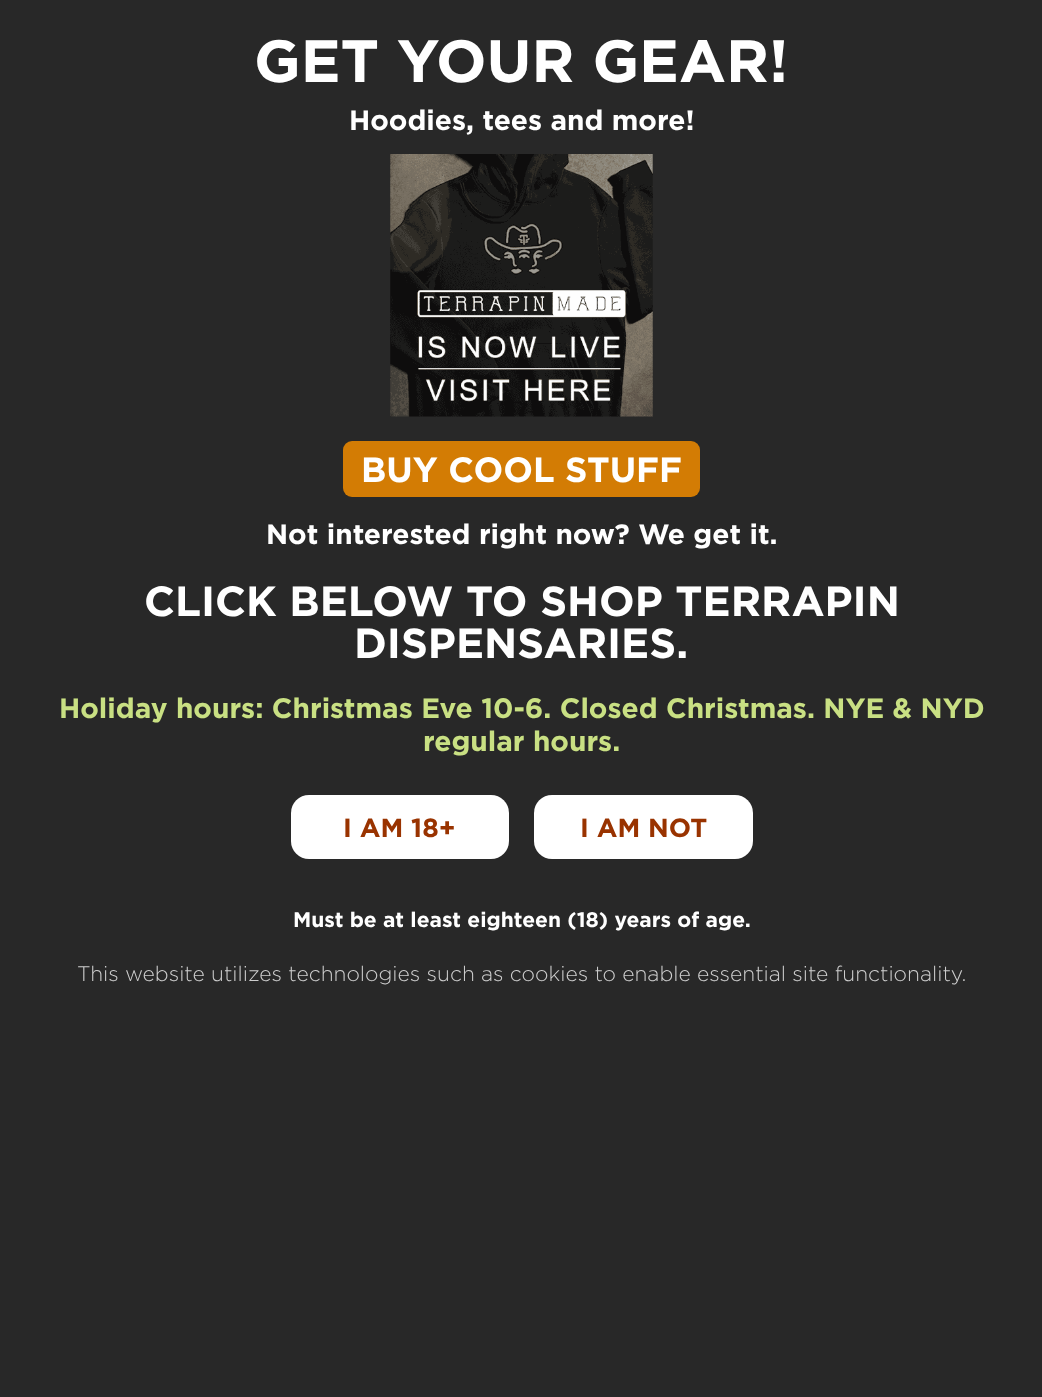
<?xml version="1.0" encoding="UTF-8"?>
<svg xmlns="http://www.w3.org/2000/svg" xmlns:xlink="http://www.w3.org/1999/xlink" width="1042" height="1397">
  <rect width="100%" height="100%" fill="#282828" />
  <image x="390" y="154" width="263" height="263" xlink:href="image1.png" />
  <rect x="343" y="441" width="357" height="56" rx="9" fill="#d37c04" />
  <rect x="291" y="795" width="218" height="64" rx="18" fill="#ffffff" />
  <rect x="534" y="795" width="219" height="64" rx="18" fill="#ffffff" />
  <text x="254" y="82" style="font-family: Gotham; font-size: 59.5px; font-weight: bold; fill: #ffffff">GET YOUR GEAR!</text>
  <text x="349" y="130" style="font-family: Gotham; font-size: 28px; font-weight: bold; fill: #ffffff">Hoodies, tees and more!</text>
  <text x="361" y="482" style="font-family: Gotham; font-size: 35px; font-weight: bold; fill: #ffffff">BUY COOL STUFF</text>
  <text x="266" y="544" style="font-family: Gotham; font-size: 28px; font-weight: bold; fill: #ffffff">Not interested right now? We get it.</text>
  <text x="144" y="616" style="font-family: Gotham; font-size: 42px; font-weight: bold; fill: #ffffff">CLICK BELOW TO SHOP TERRAPIN</text>
  <text x="354" y="658" style="font-family: Gotham; font-size: 42px; font-weight: bold; fill: #ffffff">DISPENSARIES.</text>
  <text x="59" y="718" style="font-family: Gotham; font-size: 28px; font-weight: bold; fill: #c9e083">Holiday hours: Christmas Eve 10-6. Closed Christmas. NYE &amp; NYD</text>
  <text x="423" y="751" style="font-family: Gotham; font-size: 28px; font-weight: bold; fill: #c9e083">regular hours.</text>
  <text x="343" y="837" style="font-family: Gotham; font-size: 26.25px; font-weight: bold; fill: #993300">I AM 18+</text>
  <text x="580" y="837" style="font-family: Gotham; font-size: 26.25px; font-weight: bold; fill: #993300">I AM NOT</text>
  <text x="293" y="927" style="font-family: Gotham; font-size: 21px; font-weight: bold; fill: #ffffff">Must be at least eighteen (18) years of age.</text>
  <text x="77" y="981" style="font-family: Gotham; font-size: 21px; font-weight: 300; fill: #cecece">This website utilizes technologies such as cookies to enable essential site functionality.</text>
</svg>
